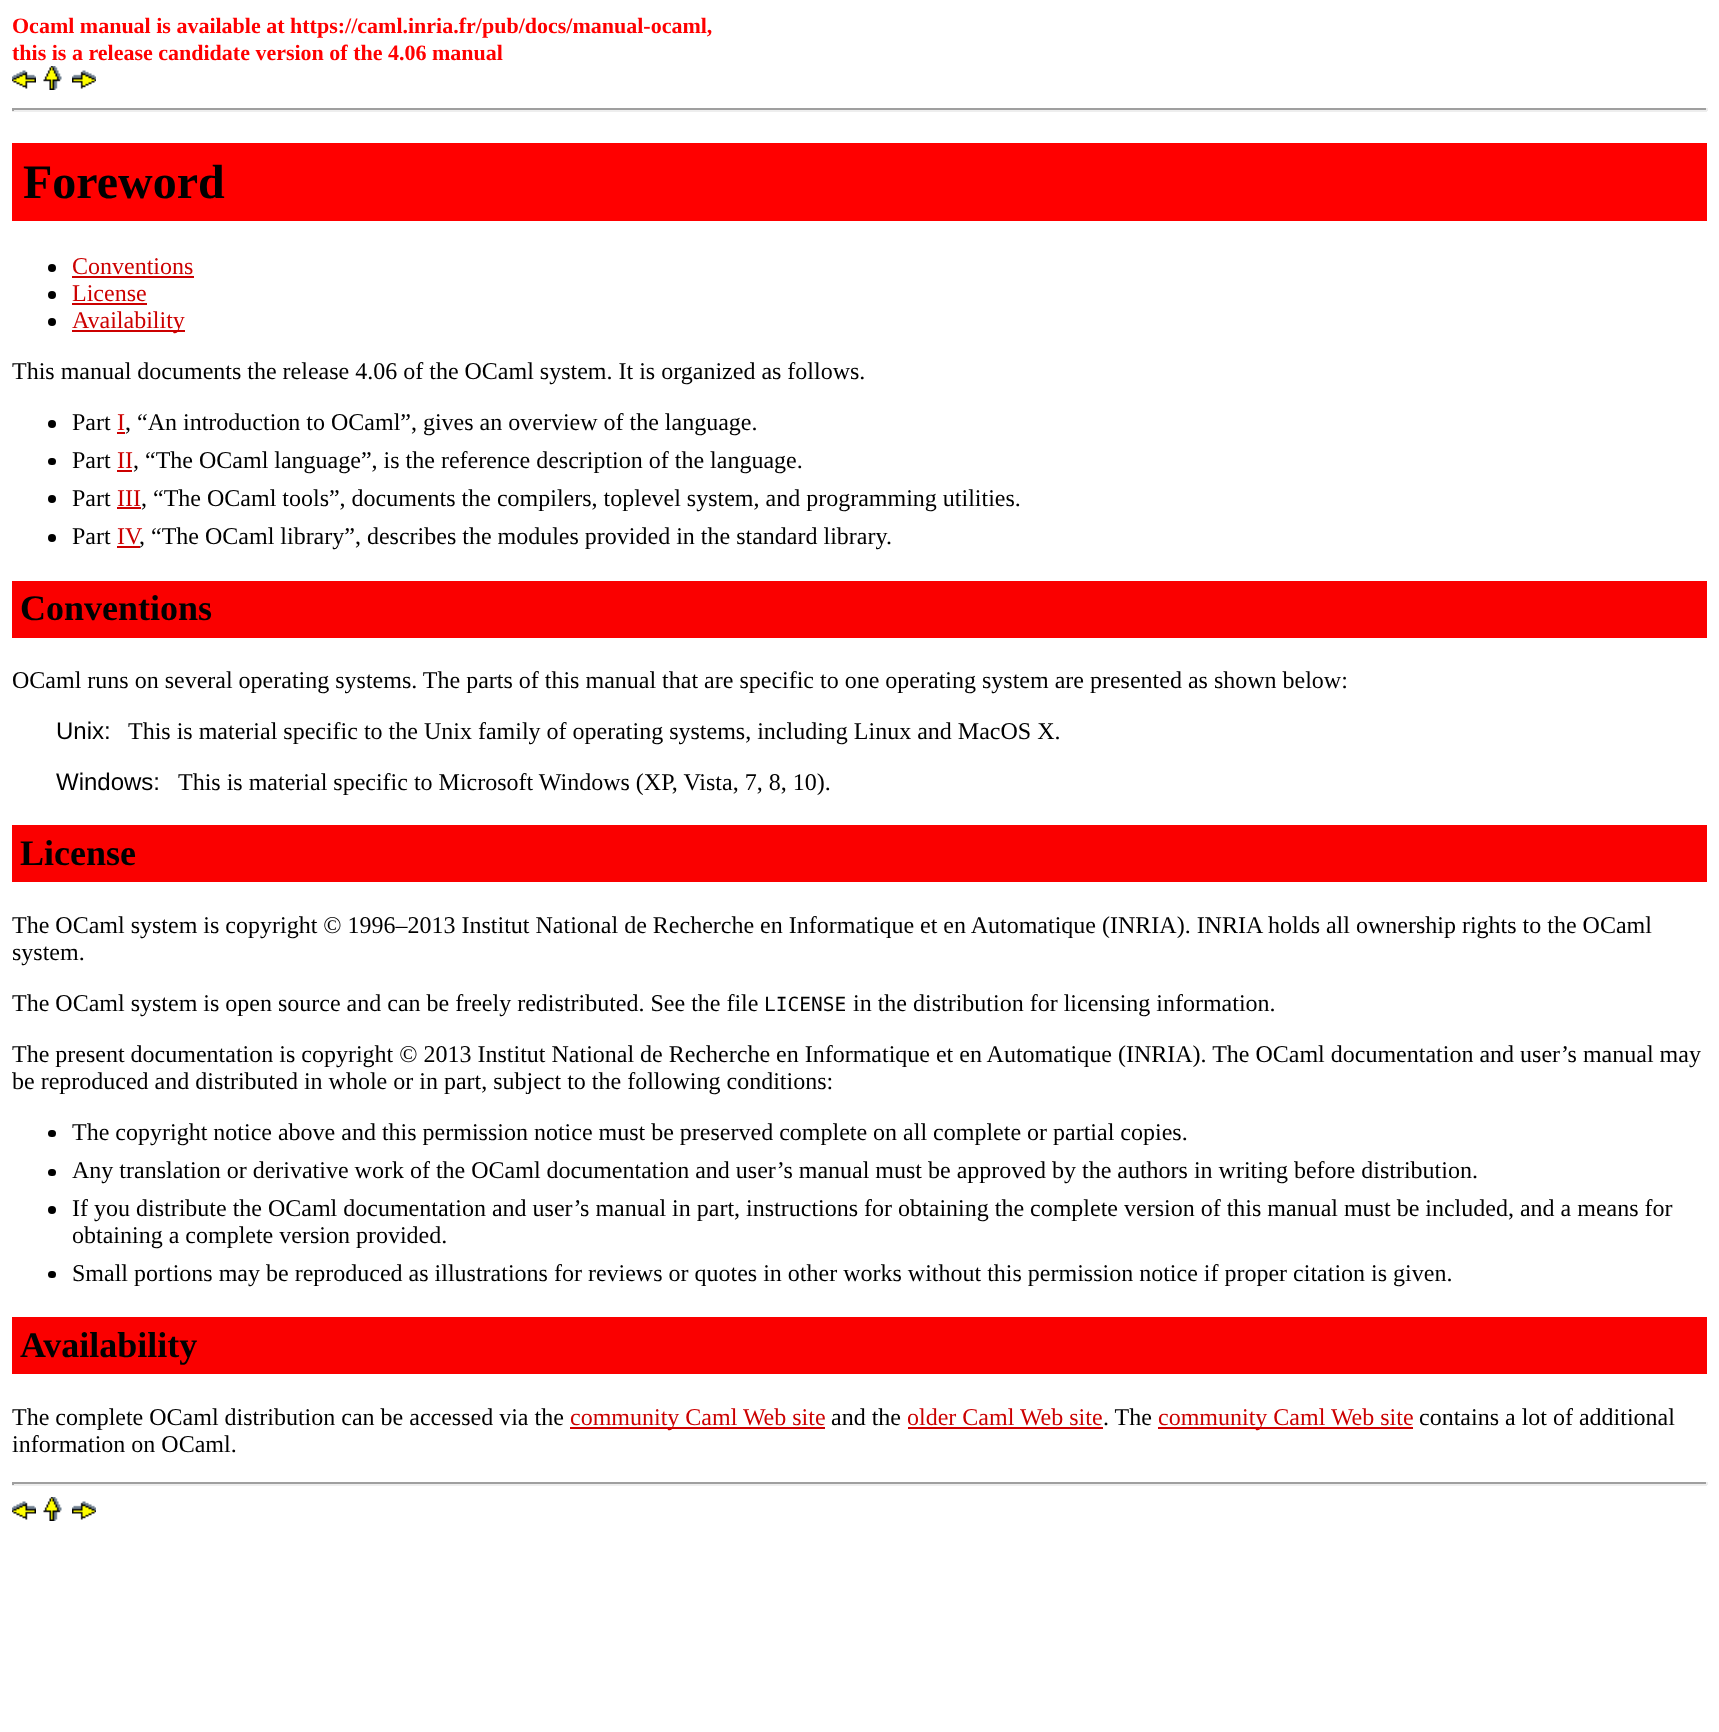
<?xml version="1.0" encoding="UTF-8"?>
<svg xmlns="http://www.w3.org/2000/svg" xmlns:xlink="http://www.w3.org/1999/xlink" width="1719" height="1732">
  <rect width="100%" height="100%" fill="#ffffff" />
  <image x="12" y="70" width="24" height="19" xlink:href="image1.png" />
  <image x="43" y="66" width="19" height="24" xlink:href="image2.png" />
  <image x="72" y="70" width="24" height="19" xlink:href="image3.png" />
  <rect x="12" y="108" width="1695" height="2" fill="#9f9f9f" />
  <rect x="1706" y="108" width="2" height="3" fill="#eeeeee" />
  <rect x="12" y="110" width="1695" height="2" fill="#eeeeee" />
  <rect x="12" y="108" width="2" height="3" fill="#9f9f9f" />
  <rect x="12" y="143" width="1695" height="78" fill="#ff0000" />
  <circle cx="52" cy="268" r="4" fill="#000000" />
  <rect x="72" y="276" width="122" height="2" fill="#cc0000" />
  <circle cx="52" cy="295" r="4" fill="#000000" />
  <rect x="72" y="303" width="75" height="2" fill="#cc0000" />
  <circle cx="52" cy="322" r="4" fill="#000000" />
  <rect x="72" y="330" width="113" height="2" fill="#cc0000" />
  <circle cx="52" cy="424" r="4" fill="#000000" />
  <rect x="117" y="432" width="8" height="2" fill="#cc0000" />
  <rect x="48" y="458" width="8" height="7" rx="3.5" fill="#000000" />
  <rect x="117" y="470" width="15" height="2" fill="#cc0000" />
  <circle cx="52" cy="499" r="4" fill="#000000" />
  <rect x="117" y="507" width="24" height="2" fill="#cc0000" />
  <circle cx="52" cy="538" r="4" fill="#000000" />
  <rect x="117" y="546" width="23" height="2" fill="#cc0000" />
  <rect x="12" y="581" width="1695" height="57" fill="#fa0000" />
  <rect x="12" y="825" width="1695" height="57" fill="#fa0000" />
  <rect x="48" y="1130" width="8" height="7" rx="3.5" fill="#000000" />
  <rect x="48" y="1169" width="8" height="7" rx="3.5" fill="#000000" />
  <circle cx="52" cy="1210" r="4" fill="#000000" />
  <rect x="48" y="1271" width="8" height="7" rx="3.5" fill="#000000" />
  <rect x="12" y="1317" width="1695" height="57" fill="#fa0000" />
  <rect x="570" y="1427" width="255" height="2" fill="#cc0000" />
  <rect x="908" y="1427" width="195" height="2" fill="#cc0000" />
  <rect x="1158" y="1427" width="255" height="2" fill="#cc0000" />
  <rect x="12" y="1482" width="1695" height="2" fill="#9f9f9f" />
  <rect x="1706" y="1482" width="2" height="3" fill="#eeeeee" />
  <rect x="12" y="1484" width="1695" height="2" fill="#eeeeee" />
  <rect x="12" y="1482" width="2" height="3" fill="#9f9f9f" />
  <image x="12" y="1501" width="24" height="19" xlink:href="image1.png" />
  <image x="43" y="1497" width="19" height="24" xlink:href="image2.png" />
  <image x="72" y="1501" width="24" height="19" xlink:href="image3.png" />
  <text x="12" y="33" style="font-family: Liberation Serif; font-size: 22px; font-weight: bold; fill: #ff0000">Ocaml manual is available at https://caml.inria.fr/pub/docs/manual-ocaml,</text>
  <text x="12" y="60" style="font-family: Liberation Serif; font-size: 22px; font-weight: bold; fill: #ff0000">this is a release candidate version of the 4.06 manual</text>
  <text x="23" y="198" style="font-family: Liberation Serif; font-size: 48px; font-weight: bold; fill: #000000">Foreword</text>
  <text x="72" y="274" style="font-family: Liberation Serif; font-size: 24px; fill: #cc0000">Conventions</text>
  <text x="72" y="301" style="font-family: Liberation Serif; font-size: 24px; fill: #cc0000">License</text>
  <text x="72" y="328" style="font-family: Liberation Serif; font-size: 24px; fill: #cc0000">Availability</text>
  <text x="12" y="379" style="font-family: Liberation Serif; font-size: 24px; fill: #000000">This manual documents the release 4.06 of the OCaml system. It is organized as follows.</text>
  <text x="72" y="430" style="font-family: Liberation Serif; font-size: 24px; fill: #000000">Part</text>
  <text x="117" y="430" style="font-family: Liberation Serif; font-size: 24px; fill: #cc0000">I</text>
  <text x="125" y="430" style="font-family: Liberation Serif; font-size: 24px; fill: #000000">, “An introduction to OCaml”, gives an overview of the language.</text>
  <text x="72" y="468" style="font-family: Liberation Serif; font-size: 24px; fill: #000000">Part</text>
  <text x="117" y="468" style="font-family: Liberation Serif; font-size: 24px; fill: #cc0000">II</text>
  <text x="133" y="468" style="font-family: Liberation Serif; font-size: 24px; fill: #000000">, “The OCaml language”, is the reference description of the language.</text>
  <text x="72" y="506" style="font-family: Liberation Serif; font-size: 24px; fill: #000000">Part</text>
  <text x="117" y="506" style="font-family: Liberation Serif; font-size: 24px; fill: #cc0000">III</text>
  <text x="141" y="506" style="font-family: Liberation Serif; font-size: 24px; fill: #000000">, “The OCaml tools”, documents the compilers, toplevel system, and programming utilities.</text>
  <text x="72" y="544" style="font-family: Liberation Serif; font-size: 24px; fill: #000000">Part</text>
  <text x="117" y="544" style="font-family: Liberation Serif; font-size: 24px; fill: #cc0000">IV</text>
  <text x="139" y="544" style="font-family: Liberation Serif; font-size: 24px; fill: #000000">, “The OCaml library”, describes the modules provided in the standard library.</text>
  <text x="20" y="620" style="font-family: Liberation Serif; font-size: 36px; font-weight: bold; fill: #000000">Conventions</text>
  <text x="12" y="688" style="font-family: Liberation Serif; font-size: 24px; fill: #000000">OCaml runs on several operating systems. The parts of this manual that are specific to one operating system are presented as shown below:</text>
  <text x="56" y="739" style="font-family: Liberation Sans; font-size: 24px; fill: #000000">Unix:</text>
  <text x="128" y="739" style="font-family: Liberation Serif; font-size: 24px; fill: #000000">This is material specific to the Unix family of operating systems, including Linux and MacOS X.</text>
  <text x="56" y="790" style="font-family: Liberation Sans; font-size: 24px; fill: #000000">Windows:</text>
  <text x="178" y="790" style="font-family: Liberation Serif; font-size: 24px; fill: #000000">This is material specific to Microsoft Windows (XP, Vista, 7, 8, 10).</text>
  <text x="20" y="865" style="font-family: Liberation Serif; font-size: 36px; font-weight: bold; fill: #000000">License</text>
  <text x="12" y="933" style="font-family: Liberation Serif; font-size: 24px; fill: #000000">The OCaml system is copyright © 1996–2013 Institut National de Recherche en Informatique et en Automatique (INRIA). INRIA holds all ownership rights to the OCaml</text>
  <text x="12" y="960" style="font-family: Liberation Serif; font-size: 24px; fill: #000000">system.</text>
  <text x="12" y="1011" style="font-family: Liberation Serif; font-size: 24px; fill: #000000">The OCaml system is open source and can be freely redistributed. See the file</text>
  <text x="764" y="1011" style="font-family: DejaVu Sans Mono; font-size: 19.5px; fill: #000000">LICENSE</text>
  <text x="853" y="1011" style="font-family: Liberation Serif; font-size: 24px; fill: #000000">in the distribution for licensing information.</text>
  <text x="12" y="1062" style="font-family: Liberation Serif; font-size: 24px; fill: #000000">The present documentation is copyright © 2013 Institut National de Recherche en Informatique et en Automatique (INRIA). The OCaml documentation and user’s manual may</text>
  <text x="12" y="1089" style="font-family: Liberation Serif; font-size: 24px; fill: #000000">be reproduced and distributed in whole or in part, subject to the following conditions:</text>
  <text x="72" y="1140" style="font-family: Liberation Serif; font-size: 24px; fill: #000000">The copyright notice above and this permission notice must be preserved complete on all complete or partial copies.</text>
  <text x="72" y="1178" style="font-family: Liberation Serif; font-size: 24px; fill: #000000">Any translation or derivative work of the OCaml documentation and user’s manual must be approved by the authors in writing before distribution.</text>
  <text x="72" y="1216" style="font-family: Liberation Serif; font-size: 24px; fill: #000000">If you distribute the OCaml documentation and user’s manual in part, instructions for obtaining the complete version of this manual must be included, and a means for</text>
  <text x="72" y="1243" style="font-family: Liberation Serif; font-size: 24px; fill: #000000">obtaining a complete version provided.</text>
  <text x="72" y="1281" style="font-family: Liberation Serif; font-size: 24px; fill: #000000">Small portions may be reproduced as illustrations for reviews or quotes in other works without this permission notice if proper citation is given.</text>
  <text x="20" y="1357" style="font-family: Liberation Serif; font-size: 36px; font-weight: bold; fill: #000000">Availability</text>
  <text x="12" y="1425" style="font-family: Liberation Serif; font-size: 24px; fill: #000000">The complete OCaml distribution can be accessed via the</text>
  <text x="570" y="1425" style="font-family: Liberation Serif; font-size: 24px; fill: #cc0000">community Caml Web site</text>
  <text x="831" y="1425" style="font-family: Liberation Serif; font-size: 24px; fill: #000000">and the</text>
  <text x="907" y="1425" style="font-family: Liberation Serif; font-size: 24px; fill: #cc0000">older Caml Web site</text>
  <text x="1103" y="1425" style="font-family: Liberation Serif; font-size: 24px; fill: #000000">. The</text>
  <text x="1158" y="1425" style="font-family: Liberation Serif; font-size: 24px; fill: #cc0000">community Caml Web site</text>
  <text x="1419" y="1425" style="font-family: Liberation Serif; font-size: 24px; fill: #000000">contains a lot of additional</text>
  <text x="12" y="1452" style="font-family: Liberation Serif; font-size: 24px; fill: #000000">information on OCaml.</text>
</svg>
